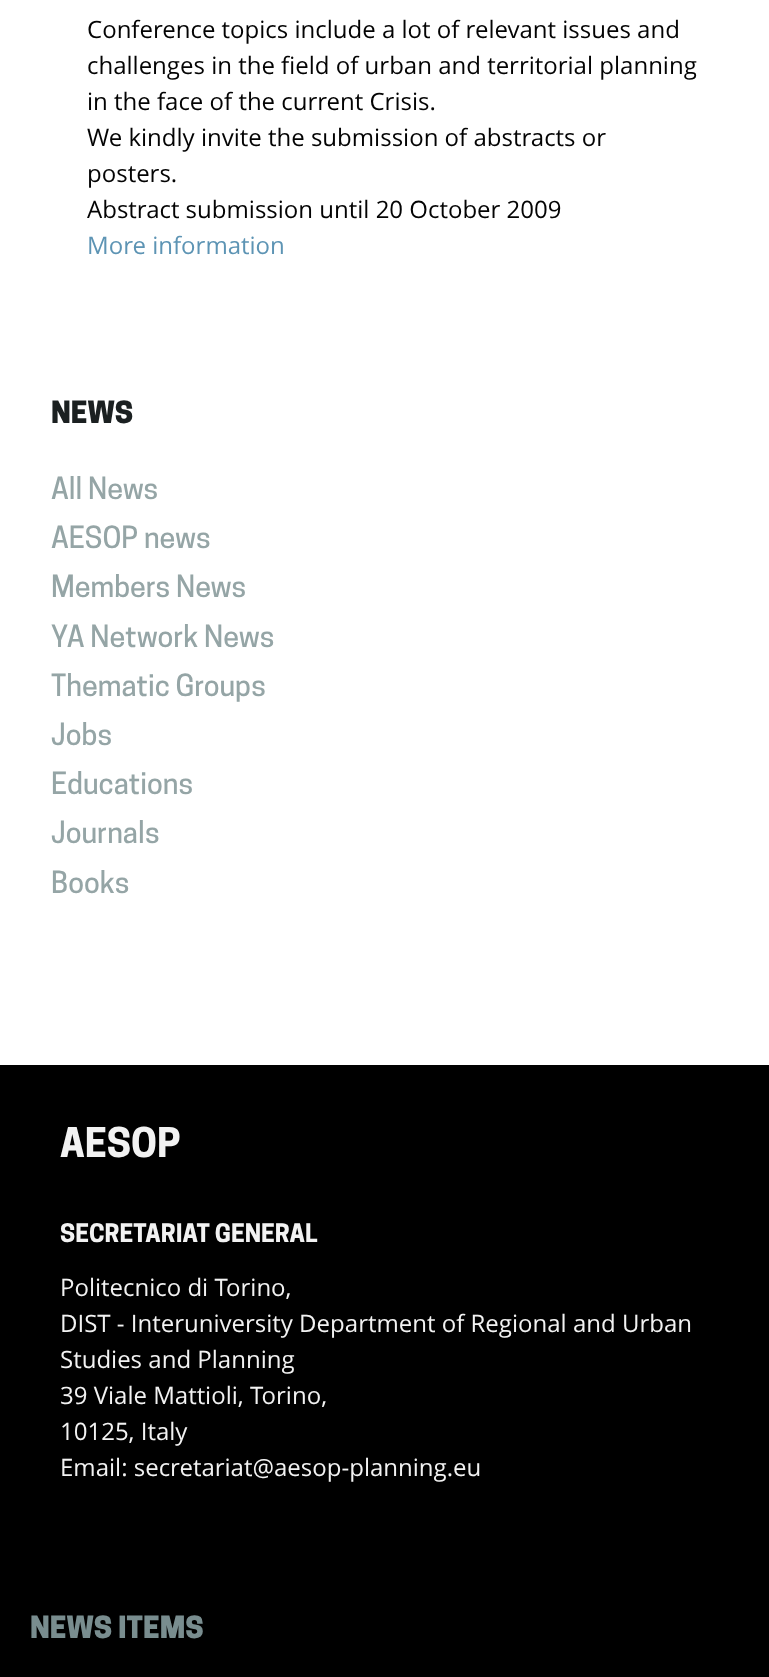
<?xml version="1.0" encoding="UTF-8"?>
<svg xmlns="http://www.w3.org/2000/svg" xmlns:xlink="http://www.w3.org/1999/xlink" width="769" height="1677">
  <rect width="100%" height="100%" fill="#ffffff" />
  <rect y="1065" width="769" height="612" fill="#000000" />
  <text x="87" y="38" style="font-family: Open Sans; font-size: 24px; fill: #030303">Conference topics include a lot of relevant issues and</text>
  <text x="87" y="74" style="font-family: Open Sans; font-size: 24px; fill: #030303">challenges in the field of urban and territorial planning</text>
  <text x="87" y="110" style="font-family: Open Sans; font-size: 24px; fill: #030303">in the face of the current Crisis.</text>
  <text x="87" y="146" style="font-family: Open Sans; font-size: 24px; fill: #030303">We kindly invite the submission of abstracts or</text>
  <text x="87" y="182" style="font-family: Open Sans; font-size: 24px; fill: #030303">posters.</text>
  <text x="87" y="218" style="font-family: Open Sans; font-size: 24px; fill: #030303">Abstract submission until 20 October 2009</text>
  <text x="87" y="254" style="font-family: Open Sans; font-size: 24px; fill: #5d94b4">More information</text>
  <text x="51" y="423" style="font-family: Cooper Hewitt; font-size: 28.75px; font-weight: 900; fill: #1b2021">NEWS</text>
  <text x="51" y="499" style="font-family: Cooper Hewitt; font-size: 28.75px; font-weight: 500; fill: #95a5a6">All News</text>
  <text x="51" y="548" style="font-family: Cooper Hewitt; font-size: 28.75px; font-weight: 500; fill: #95a5a6">AESOP news</text>
  <text x="51" y="597" style="font-family: Cooper Hewitt; font-size: 28.75px; font-weight: 500; fill: #95a5a6">Members News</text>
  <text x="51" y="647" style="font-family: Cooper Hewitt; font-size: 28.75px; font-weight: 500; fill: #95a5a6">YA Network News</text>
  <text x="51" y="696" style="font-family: Cooper Hewitt; font-size: 28.75px; font-weight: 500; fill: #95a5a6">Thematic Groups</text>
  <text x="51" y="745" style="font-family: Cooper Hewitt; font-size: 28.75px; font-weight: 500; fill: #95a5a6">Jobs</text>
  <text x="51" y="794" style="font-family: Cooper Hewitt; font-size: 28.75px; font-weight: 500; fill: #95a5a6">Educations</text>
  <text x="51" y="843" style="font-family: Cooper Hewitt; font-size: 28.75px; font-weight: 500; fill: #95a5a6">Journals</text>
  <text x="51" y="893" style="font-family: Cooper Hewitt; font-size: 28.75px; font-weight: 500; fill: #95a5a6">Books</text>
  <text x="60" y="1157" style="font-family: Cooper Hewitt; font-size: 38.5px; font-weight: bold; fill: #f2f2f2">AESOP</text>
  <text x="60" y="1242" style="font-family: Cooper Hewitt; font-size: 24px; font-weight: bold; fill: #f2f2f2">SECRETARIAT GENERAL</text>
  <text x="60" y="1296" style="font-family: Open Sans; font-size: 24px; fill: #f2f2f2">Politecnico di Torino,</text>
  <text x="60" y="1332" style="font-family: Open Sans; font-size: 24px; fill: #f2f2f2">DIST - Interuniversity Department of Regional and Urban</text>
  <text x="60" y="1368" style="font-family: Open Sans; font-size: 24px; fill: #f2f2f2">Studies and Planning</text>
  <text x="60" y="1404" style="font-family: Open Sans; font-size: 24px; fill: #f2f2f2">39 Viale Mattioli, Torino,</text>
  <text x="60" y="1440" style="font-family: Open Sans; font-size: 24px; fill: #f2f2f2">10125, Italy</text>
  <text x="60" y="1476" style="font-family: Open Sans; font-size: 24px; fill: #f2f2f2">Email: secretariat@aesop-planning.eu</text>
  <text x="30" y="1638" style="font-family: Cooper Hewitt; font-size: 28.75px; font-weight: 900; fill: #798d8f">NEWS ITEMS</text>
</svg>
